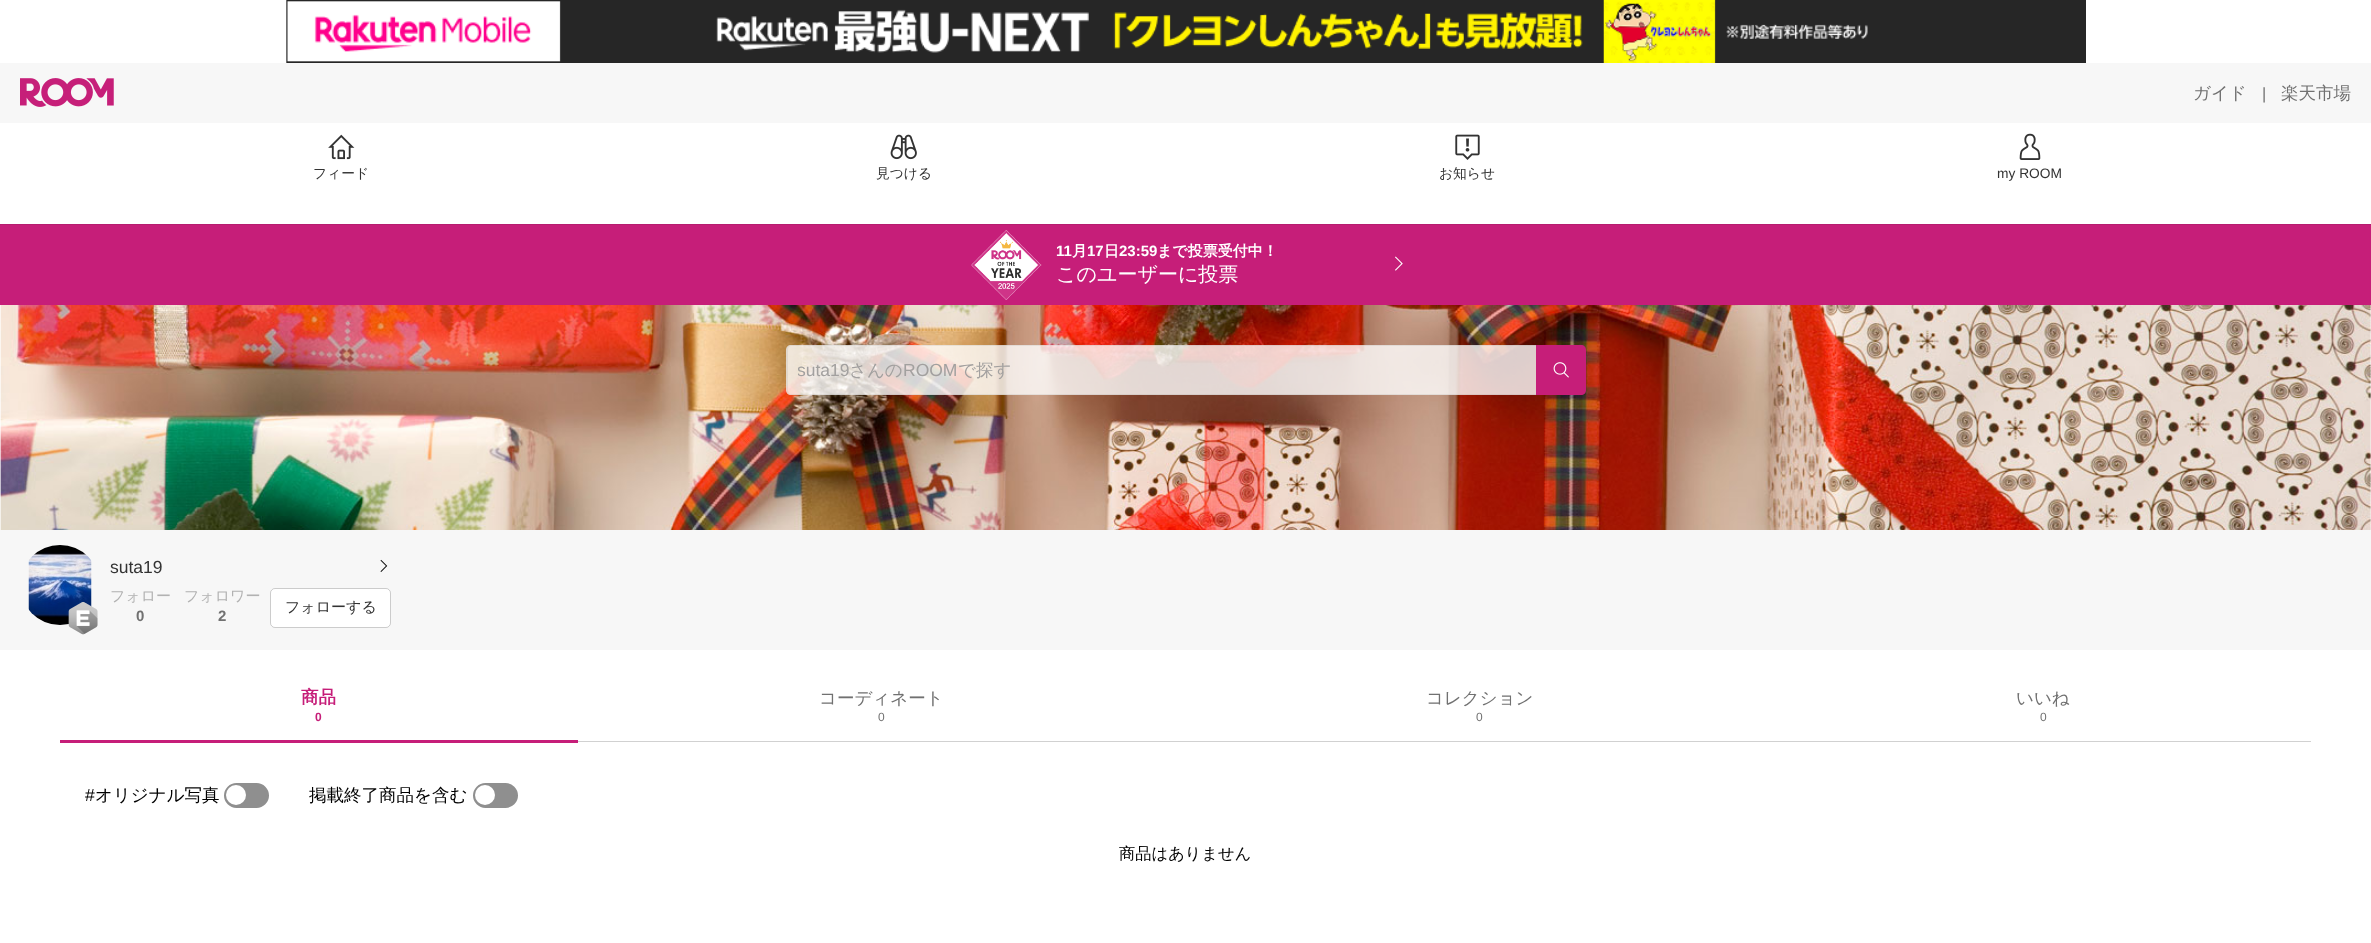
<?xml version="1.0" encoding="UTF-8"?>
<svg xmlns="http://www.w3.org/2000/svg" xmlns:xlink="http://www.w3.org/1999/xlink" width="2371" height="943">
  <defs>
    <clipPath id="clip1"><rect x="798" y="360" width="688" height="23" /></clipPath>
  </defs>
  <rect width="100%" height="100%" fill="#ffffff" />
  <image x="286" y="0" width="1800" height="63" xlink:href="image1.png" />
  <rect y="63" width="2371" height="60" fill="#f7f7f7" />
  <image x="20" y="78" width="94" height="29" xlink:href="image2.png" />
  <image x="328" y="134" width="27" height="26" xlink:href="image3.png" />
  <image x="890" y="134" width="27" height="26" xlink:href="image4.png" />
  <image x="1455" y="134" width="25" height="26" xlink:href="image5.png" />
  <image x="2019" y="133" width="22" height="27" xlink:href="image6.png" />
  <rect y="225" width="2371" height="80" fill="#c61e79" />
  <rect y="224" width="2371" height="1" fill="#b61c6f" />
  <image x="971" y="230" width="71" height="70" xlink:href="image7.png" />
  <image x="1395" y="256" width="8" height="15" xlink:href="image8.png" />
  <image x="0" y="305" width="2371" height="225" xlink:href="image9.png" />
  <path d="M 791 345 h 745 v 50 h -745 c -3 0 -5 -2 -5 -5 v -40 c 0 -3 2 -5 5 -5 z" fill="#ffffff" fill-opacity="0.8" />
  <path d="M 791 345 h 745 v 50 h -745 c -3 0 -5 -2 -5 -5 v -40 c 0 -3 2 -5 5 -5 z m 0 1 h 745 v 48 h -745 c -2 0 -3 -2 -3 -4 v -40 c 0 -2 1 -4 3 -4 z" fill="#000000" fill-opacity="0.06" fill-rule="evenodd" />
  <path d="M 1536 345 h 45 c 3 0 5 2 5 5 v 40 c 0 3 -2 5 -5 5 h -45 z" fill="#c61e79" />
  <image x="1553" y="362" width="16" height="16" xlink:href="image10.png" />
  <rect y="530" width="2371" height="120" fill="#f7f7f7" />
  <image x="28" y="545" width="64" height="80" xlink:href="image11.png" />
  <image x="68" y="602" width="30" height="33" xlink:href="image12.png" />
  <image x="380" y="559" width="8" height="13" xlink:href="image13.png" />
  <rect x="270" y="588" width="121" height="40" rx="5" fill="#ffffff" />
  <rect x="270.5" y="588.5" width="120" height="39" rx="4.5" fill="none" stroke="#000000" stroke-opacity="0.2" />
  <rect x="60" y="740" width="518" height="3" fill="#c61e79" />
  <rect x="578" y="741" width="1733" height="1" fill="#d1d1d1" />
  <rect x="225.5" y="784.5" width="42" height="22" rx="11" fill="#8f8f8f" stroke="#8f8f8f" stroke-width="3" />
  <circle cx="236" cy="795" r="10" fill="#ffffff" />
  <rect x="474.5" y="784.5" width="42" height="22" rx="11" fill="#8f8f8f" stroke="#8f8f8f" stroke-width="3" />
  <circle cx="485" cy="795" r="10" fill="#ffffff" />
  <text x="2193" y="99" style="font-family: WenQuanYi Zen Hei; font-size: 17.5px; font-weight: 500; fill: #717171">ガイド</text>
  <text x="2262" y="99" style="font-family: Liberation Sans; font-size: 16.25px; fill: #717171">|</text>
  <text x="2281" y="99" style="font-family: WenQuanYi Zen Hei; font-size: 17.5px; font-weight: 500; fill: #717171">楽天市場</text>
  <text x="313" y="178" style="font-family: WenQuanYi Zen Hei; font-size: 13.75px; font-weight: 500; fill: #333333">フィード</text>
  <text x="876" y="178" style="font-family: WenQuanYi Zen Hei; font-size: 13.75px; font-weight: 500; fill: #333333">見つける</text>
  <text x="1439" y="178" style="font-family: WenQuanYi Zen Hei; font-size: 13.75px; font-weight: 500; fill: #333333">お知らせ</text>
  <text x="1997" y="178" style="font-family: Liberation Sans; font-size: 13.75px; fill: #333333">my ROOM</text>
  <text x="1056" y="256" style="font-family: Liberation Sans; font-size: 15px; font-weight: bold; fill: #ffffff">11</text>
  <text x="1072" y="256" style="font-family: WenQuanYi Zen Hei; font-size: 15px; font-weight: bold; fill: #ffffff">月</text>
  <text x="1087" y="256" style="font-family: Liberation Sans; font-size: 15px; font-weight: bold; fill: #ffffff">17</text>
  <text x="1104" y="256" style="font-family: WenQuanYi Zen Hei; font-size: 15px; font-weight: bold; fill: #ffffff">日</text>
  <text x="1119" y="256" style="font-family: Liberation Sans; font-size: 15px; font-weight: bold; fill: #ffffff">23:59</text>
  <text x="1157" y="256" style="font-family: WenQuanYi Zen Hei; font-size: 15px; font-weight: bold; fill: #ffffff">まで投票受付中！</text>
  <text x="1056" y="281" style="font-family: WenQuanYi Zen Hei; font-size: 20px; font-weight: 500; fill: #ffffff">このユーザーに投票</text>
  <g clip-path="url(#clip1)">
    <text x="797" y="376" style="font-family: Liberation Sans; font-size: 17.5px; fill: #a2a09f">suta19</text>
  </g>
  <text x="849" y="376" style="font-family: WenQuanYi Zen Hei; font-size: 17.5px; font-weight: 500; fill: #a2a09f">さんの</text>
  <text x="903" y="376" style="font-family: Liberation Sans; font-size: 17.5px; fill: #a2a09f">ROOM</text>
  <text x="958" y="376" style="font-family: WenQuanYi Zen Hei; font-size: 17.5px; font-weight: 500; fill: #a2a09f">で探す</text>
  <text x="110" y="573" style="font-family: Liberation Sans; font-size: 17.5px; fill: #333333">suta19</text>
  <text x="110" y="601" style="font-family: WenQuanYi Zen Hei; font-size: 15px; font-weight: 500; fill: #b2b2b2">フォロー</text>
  <text x="136" y="621" style="font-family: Liberation Sans; font-size: 15px; font-weight: bold; fill: #717171">0</text>
  <text x="184" y="601" style="font-family: WenQuanYi Zen Hei; font-size: 15px; font-weight: 500; fill: #b2b2b2">フォロワー</text>
  <text x="218" y="621" style="font-family: Liberation Sans; font-size: 15px; font-weight: bold; fill: #717171">2</text>
  <text x="285" y="612" style="font-family: WenQuanYi Zen Hei; font-size: 15px; font-weight: 500; fill: #333333">フォローする</text>
  <text x="301" y="703" style="font-family: WenQuanYi Zen Hei; font-size: 17.5px; font-weight: bold; fill: #c61e79">商品</text>
  <text x="315" y="721" style="font-family: Liberation Sans; font-size: 12px; font-weight: bold; fill: #c61e79">0</text>
  <text x="819" y="704" style="font-family: WenQuanYi Zen Hei; font-size: 17.5px; font-weight: 500; fill: #717171">コーディネート</text>
  <text x="878" y="721" style="font-family: Liberation Sans; font-size: 12px; fill: #717171">0</text>
  <text x="1426" y="704" style="font-family: WenQuanYi Zen Hei; font-size: 17.5px; font-weight: 500; fill: #717171">コレクション</text>
  <text x="1476" y="721" style="font-family: Liberation Sans; font-size: 12px; fill: #717171">0</text>
  <text x="2016" y="704" style="font-family: WenQuanYi Zen Hei; font-size: 17.5px; font-weight: 500; fill: #717171">いいね</text>
  <text x="2040" y="721" style="font-family: Liberation Sans; font-size: 12px; fill: #717171">0</text>
  <text x="85" y="801" style="font-family: Liberation Sans; font-size: 17.5px; fill: #000000">#</text>
  <text x="95" y="801" style="font-family: WenQuanYi Zen Hei; font-size: 17.5px; font-weight: 500; fill: #000000">オリジナル写真</text>
  <text x="309" y="801" style="font-family: WenQuanYi Zen Hei; font-size: 17.5px; font-weight: 500; fill: #000000">掲載終了商品を含む</text>
  <text x="1119" y="859" style="font-family: WenQuanYi Zen Hei; font-size: 16.25px; font-weight: 500; fill: #000000">商品はありません</text>
</svg>
